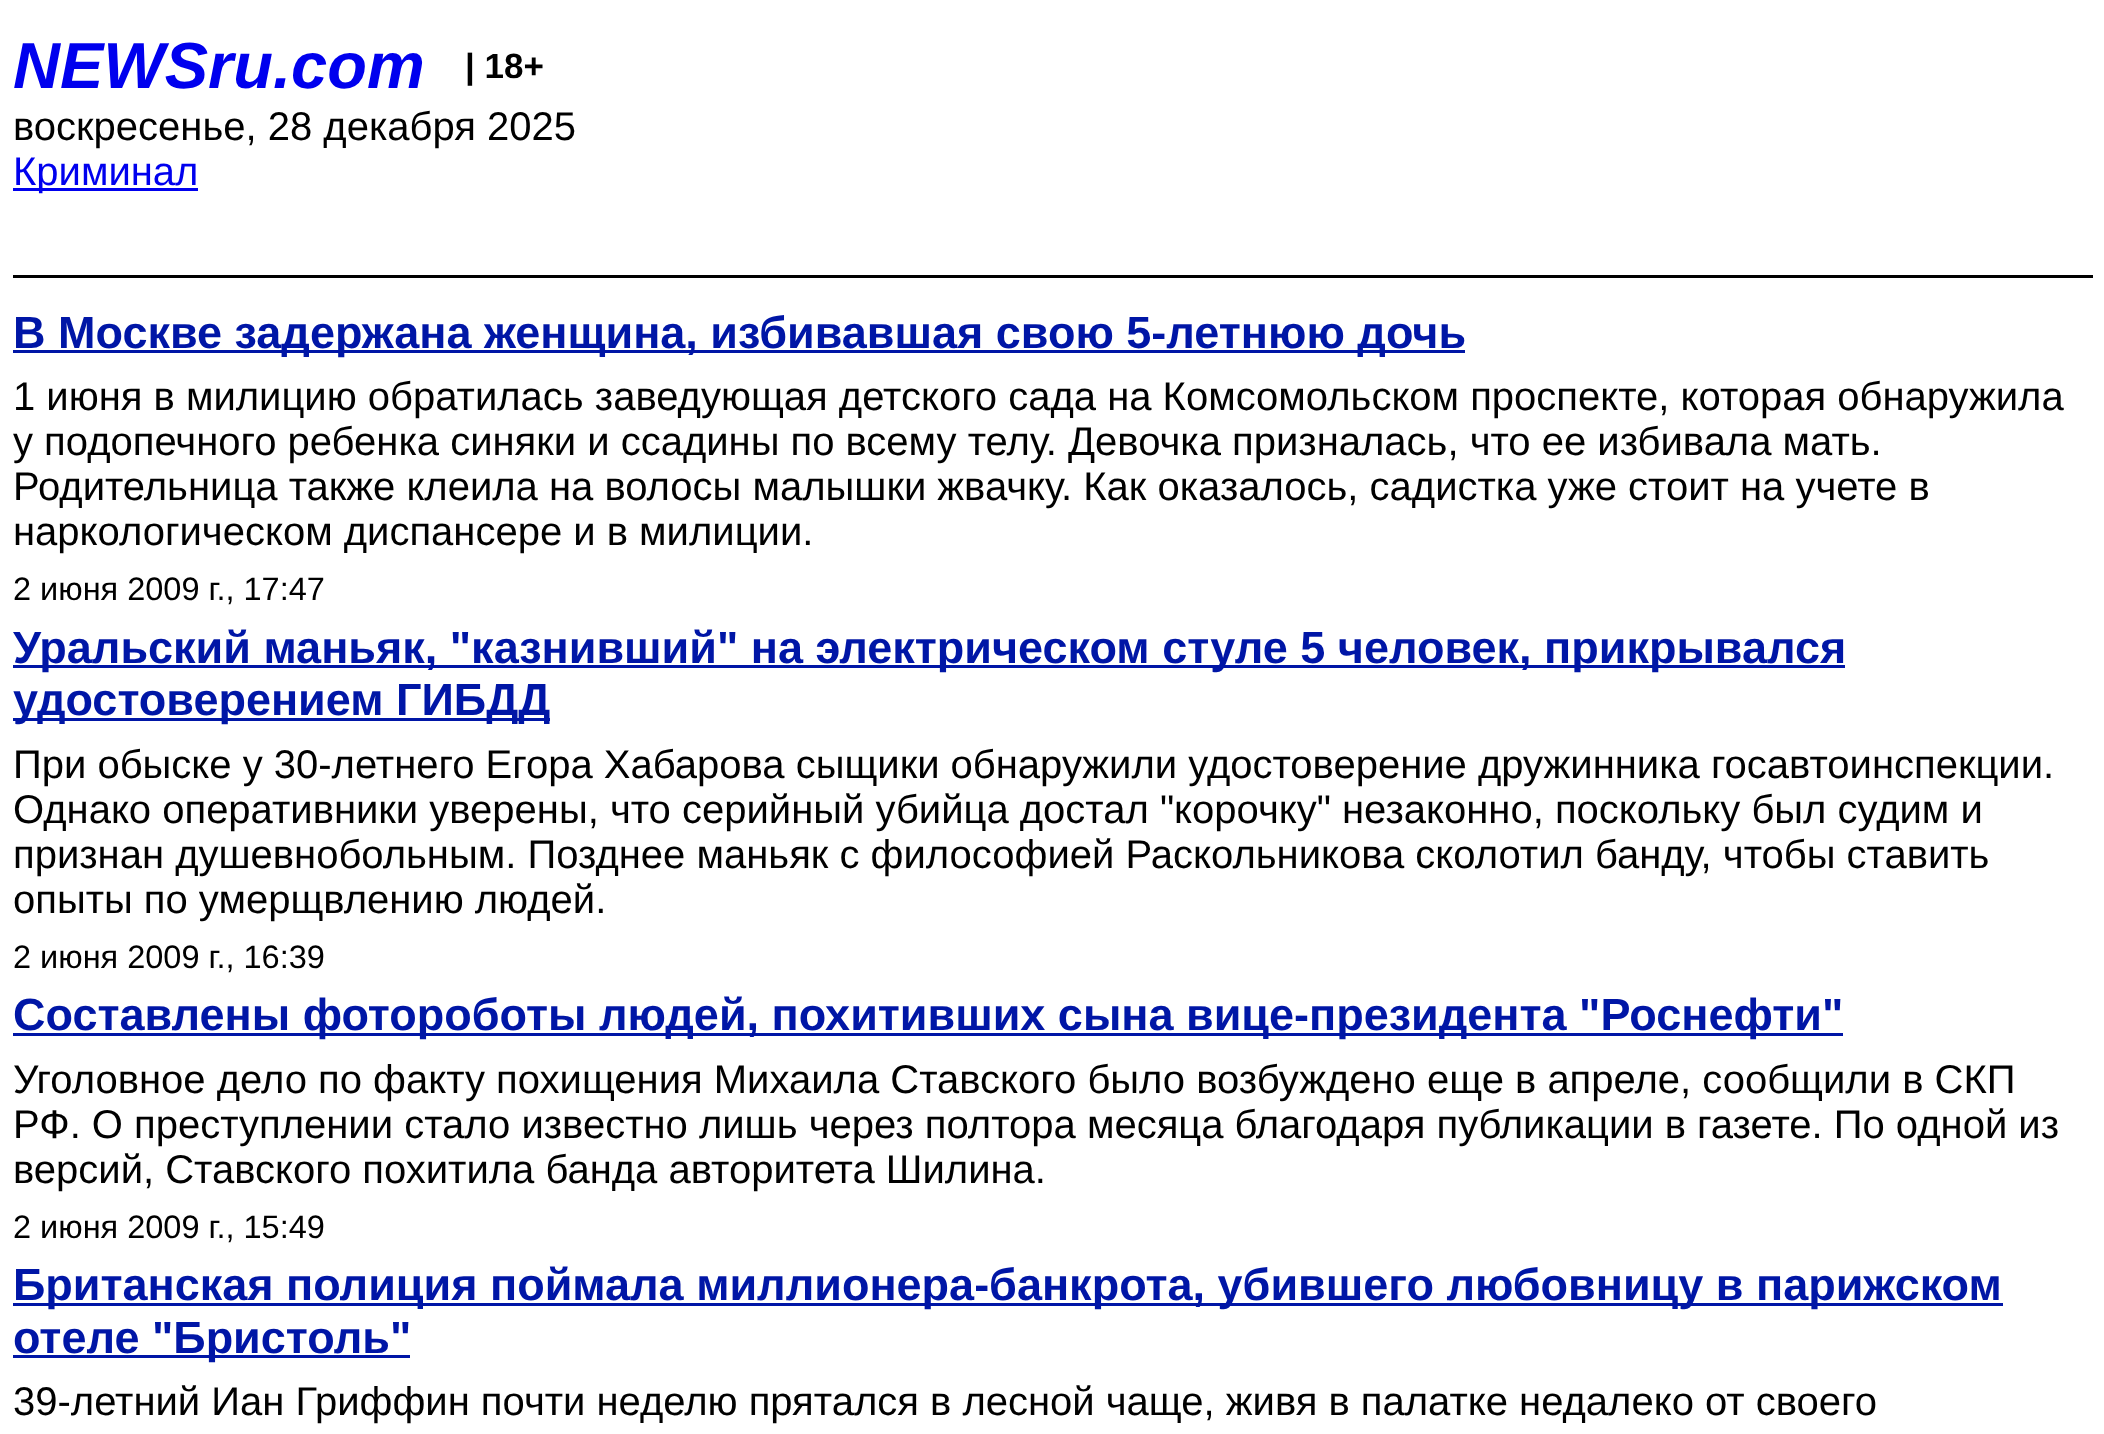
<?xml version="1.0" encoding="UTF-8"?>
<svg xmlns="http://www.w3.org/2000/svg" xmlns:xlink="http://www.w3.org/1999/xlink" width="2104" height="1434">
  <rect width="100%" height="100%" fill="#ffffff" />
  <rect x="13" y="275" width="2080" height="3" fill="#000000" />
  <rect x="13" y="188" width="185" height="3" fill="#0000ee" />
  <rect x="13" y="350" width="1452" height="3" fill="#0016a6" />
  <rect x="13" y="665" width="1832" height="3" fill="#0016a6" />
  <rect x="13" y="718" width="537" height="3" fill="#0016a6" />
  <rect x="13" y="1033" width="1830" height="3" fill="#0016a6" />
  <rect x="13" y="1303" width="1990" height="3" fill="#0016a6" />
  <rect x="13" y="1355" width="397" height="3" fill="#0016a6" />
  <text x="13" y="88" style="font-family: Liberation Sans; font-size: 65px; font-weight: bold; font-style: italic; fill: #0000ee">NEWSru.com</text>
  <text x="465" y="78" style="font-family: Liberation Sans; font-size: 35px; font-weight: bold; fill: #000000">| 18+</text>
  <text x="13" y="140" style="font-family: Liberation Sans; font-size: 40px; fill: #000000">воскресенье, 28 декабря 2025</text>
  <text x="13" y="185" style="font-family: Liberation Sans; font-size: 40px; fill: #0000ee">Криминал</text>
  <text x="13" y="348" style="font-family: Liberation Sans; font-size: 45px; font-weight: bold; fill: #0016a6">В Москве задержана женщина, избивавшая свою 5-летнюю дочь</text>
  <text x="13" y="410" style="font-family: Liberation Sans; font-size: 40px; fill: #000000">1 июня в милицию обратилась заведующая детского сада на Комсомольском проспекте, которая обнаружила</text>
  <text x="13" y="455" style="font-family: Liberation Sans; font-size: 40px; fill: #000000">у подопечного ребенка синяки и ссадины по всему телу. Девочка призналась, что ее избивала мать.</text>
  <text x="13" y="500" style="font-family: Liberation Sans; font-size: 40px; fill: #000000">Родительница также клеила на волосы малышки жвачку. Как оказалось, садистка уже стоит на учете в</text>
  <text x="13" y="545" style="font-family: Liberation Sans; font-size: 40px; fill: #000000">наркологическом диспансере и в милиции.</text>
  <text x="13" y="600" style="font-family: Liberation Sans; font-size: 32.5px; fill: #000000">2 июня 2009 г., 17:47</text>
  <text x="13" y="663" style="font-family: Liberation Sans; font-size: 45px; font-weight: bold; fill: #0016a6">Уральский маньяк, "казнивший" на электрическом стуле 5 человек, прикрывался</text>
  <text x="13" y="715" style="font-family: Liberation Sans; font-size: 45px; font-weight: bold; fill: #0016a6">удостоверением ГИБДД</text>
  <text x="13" y="778" style="font-family: Liberation Sans; font-size: 40px; fill: #000000">При обыске у 30-летнего Егора Хабарова сыщики обнаружили удостоверение дружинника госавтоинспекции.</text>
  <text x="13" y="823" style="font-family: Liberation Sans; font-size: 40px; fill: #000000">Однако оперативники уверены, что серийный убийца достал "корочку" незаконно, поскольку был судим и</text>
  <text x="13" y="868" style="font-family: Liberation Sans; font-size: 40px; fill: #000000">признан душевнобольным. Позднее маньяк с философией Раскольникова сколотил банду, чтобы ставить</text>
  <text x="13" y="913" style="font-family: Liberation Sans; font-size: 40px; fill: #000000">опыты по умерщвлению людей.</text>
  <text x="13" y="968" style="font-family: Liberation Sans; font-size: 32.5px; fill: #000000">2 июня 2009 г., 16:39</text>
  <text x="13" y="1030" style="font-family: Liberation Sans; font-size: 45px; font-weight: bold; fill: #0016a6">Составлены фотороботы людей, похитивших сына вице-президента "Роснефти"</text>
  <text x="13" y="1093" style="font-family: Liberation Sans; font-size: 40px; fill: #000000">Уголовное дело по факту похищения Михаила Ставского было возбуждено еще в апреле, сообщили в СКП</text>
  <text x="13" y="1138" style="font-family: Liberation Sans; font-size: 40px; fill: #000000">РФ. О преступлении стало известно лишь через полтора месяца благодаря публикации в газете. По одной из</text>
  <text x="13" y="1183" style="font-family: Liberation Sans; font-size: 40px; fill: #000000">версий, Ставского похитила банда авторитета Шилина.</text>
  <text x="13" y="1238" style="font-family: Liberation Sans; font-size: 32.5px; fill: #000000">2 июня 2009 г., 15:49</text>
  <text x="13" y="1300" style="font-family: Liberation Sans; font-size: 45px; font-weight: bold; fill: #0016a6">Британская полиция поймала миллионера-банкрота, убившего любовницу в парижском</text>
  <text x="13" y="1353" style="font-family: Liberation Sans; font-size: 45px; font-weight: bold; fill: #0016a6">отеле "Бристоль"</text>
  <text x="13" y="1415" style="font-family: Liberation Sans; font-size: 40px; fill: #000000">39-летний Иан Гриффин почти неделю прятался в лесной чаще, живя в палатке недалеко от своего</text>
</svg>
